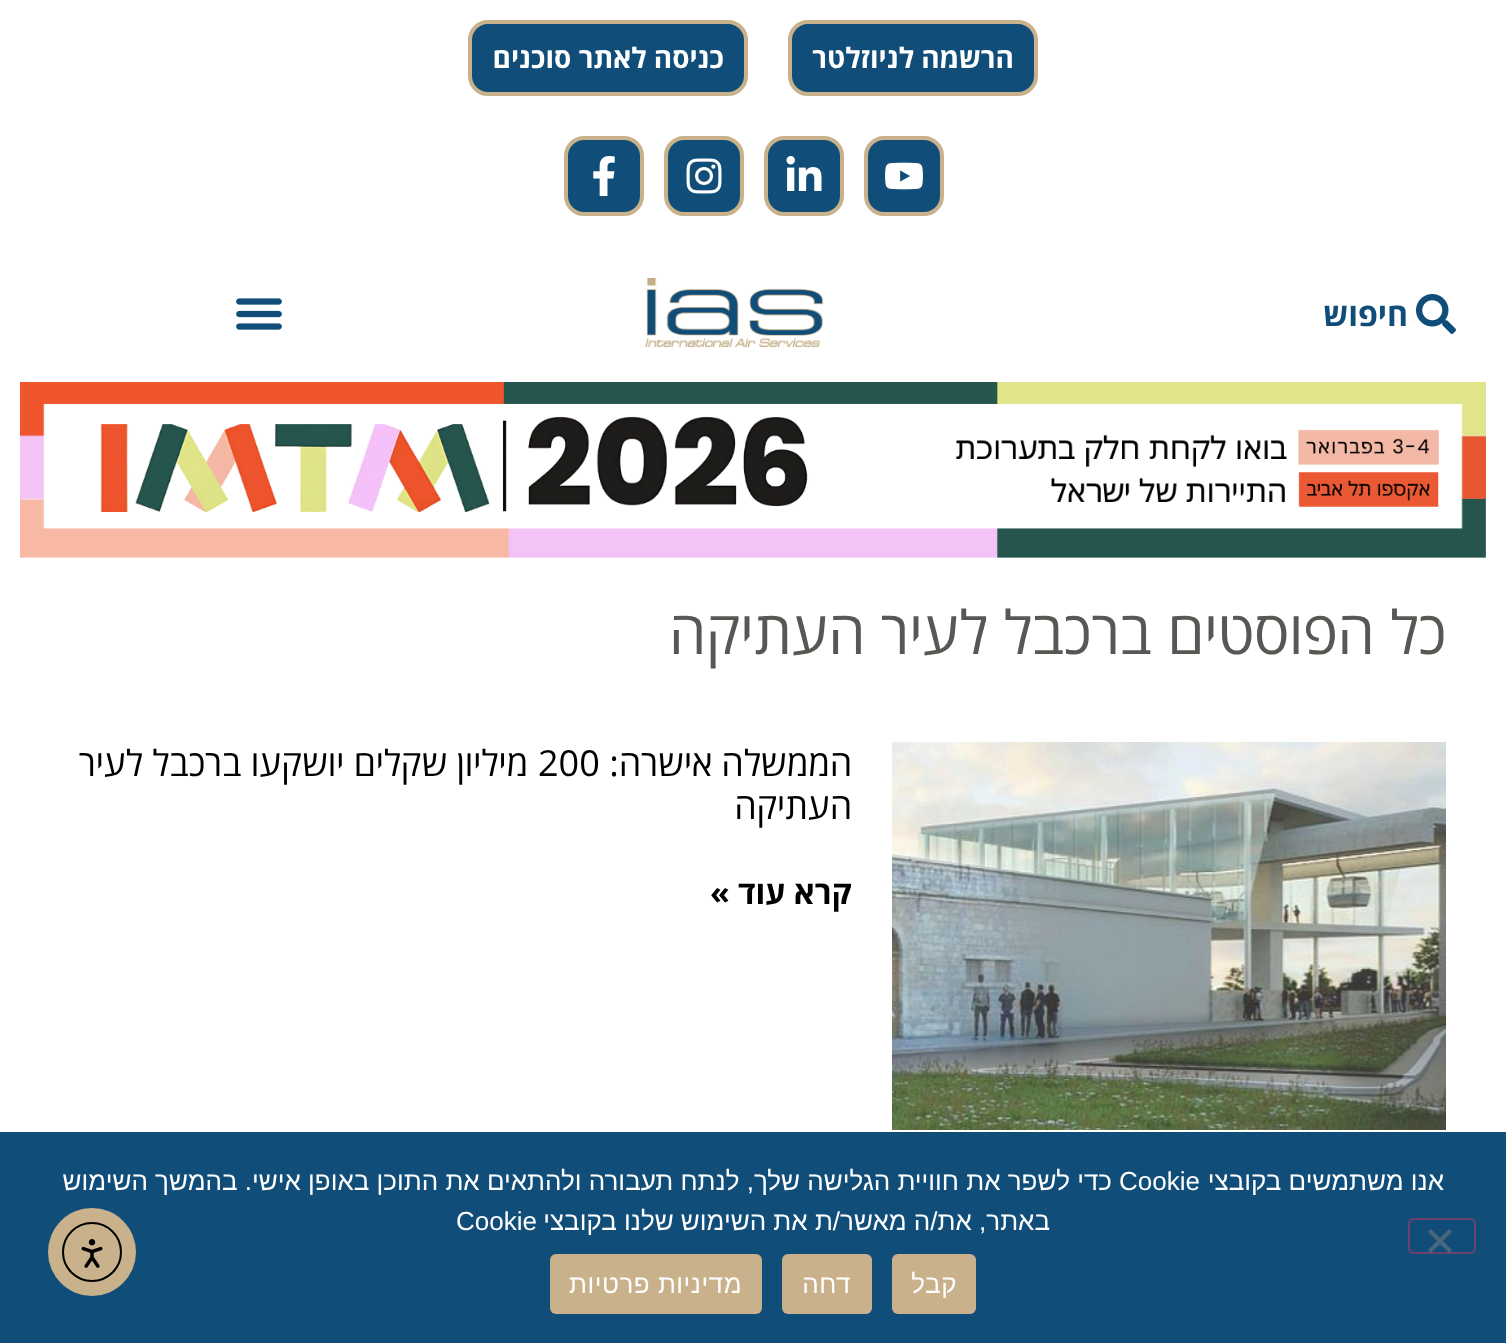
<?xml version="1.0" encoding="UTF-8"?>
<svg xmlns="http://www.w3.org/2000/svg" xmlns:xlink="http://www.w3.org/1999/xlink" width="1506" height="1343">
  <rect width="100%" height="100%" fill="#ffffff" />
  <rect x="790" y="22" width="246" height="72" rx="18" fill="#104e79" stroke="#c8b18b" stroke-width="4" />
  <rect x="470" y="22" width="276" height="72" rx="18" fill="#104e79" stroke="#c8b18b" stroke-width="4" />
  <rect x="866" y="138" width="76" height="76" rx="18" fill="#104e79" stroke="#c8b18b" stroke-width="4" />
  <image x="885" y="162" width="38" height="28" xlink:href="image1.png" />
  <rect x="766" y="138" width="76" height="76" rx="18" fill="#104e79" stroke="#c8b18b" stroke-width="4" />
  <image x="786" y="156" width="36" height="35" xlink:href="image2.png" />
  <rect x="666" y="138" width="76" height="76" rx="18" fill="#104e79" stroke="#c8b18b" stroke-width="4" />
  <image x="686" y="158" width="36" height="36" xlink:href="image3.png" />
  <rect x="566" y="138" width="76" height="76" rx="18" fill="#104e79" stroke="#c8b18b" stroke-width="4" />
  <image x="593" y="156" width="22" height="40" xlink:href="image4.png" />
  <image x="1416" y="294" width="40" height="40" xlink:href="image5.png" />
  <image x="645" y="278" width="179" height="70" xlink:href="image6.png" />
  <image x="236" y="298" width="46" height="32" xlink:href="image7.png" />
  <image x="20" y="382" width="1466" height="176" xlink:href="image8.png" />
  <image x="892" y="742" width="554" height="388" xlink:href="image9.png" />
  <rect y="1132" width="1506" height="211" fill="#104e79" />
  <rect x="1409" y="1219" width="66" height="34" rx="5" fill="none" stroke="#6e4170" stroke-width="2" />
  <path d="M 1449 1229 l 3 3 l -21 21 l -3 -3 z" fill="#48677d" />
  <path d="M 1428 1232 l 3 -3 l 21 21 l -3 3 z" fill="#48677d" />
  <rect x="892" y="1254" width="84" height="60" rx="6" fill="#c8b18b" />
  <rect x="782" y="1254" width="90" height="60" rx="6" fill="#c8b18b" />
  <rect x="550" y="1254" width="212" height="60" rx="6" fill="#c8b18b" />
  <circle cx="92" cy="1252" r="44" fill="#c8b18b" />
  <circle cx="92" cy="1252" r="29" fill="none" stroke="#000000" stroke-width="2" />
  <image x="81" y="1239" width="22" height="29" xlink:href="image10.png" />
  <text x="1014" y="68" style="font-family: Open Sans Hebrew; font-size: 28px; font-weight: bold; direction: rtl; fill: #ffffff">הרשמה לניוזלטר</text>
  <text x="724" y="68" style="font-family: Open Sans Hebrew; font-size: 28px; font-weight: bold; direction: rtl; fill: #ffffff">כניסה לאתר סוכנים</text>
  <text x="1408" y="326" style="font-family: Open Sans Hebrew; font-size: 32px; font-weight: bold; direction: rtl; fill: #104e79">חיפוש</text>
  <text x="1446" y="654" style="font-family: Open Sans Hebrew; font-size: 60px; direction: rtl; fill: #575754">כל הפוסטים ברכבל לעיר העתיקה</text>
  <text x="852" y="776" style="font-family: Open Sans Hebrew; font-size: 36px; direction: rtl; fill: #000000">הממשלה אישרה:</text>
  <text x="538" y="776" style="font-family: Open Sans Hebrew; font-size: 36px; fill: #000000">200</text>
  <text x="528" y="776" style="font-family: Open Sans Hebrew; font-size: 36px; direction: rtl; fill: #000000">מיליון שקלים יושקעו ברכבל לעיר</text>
  <text x="852" y="819" style="font-family: Open Sans Hebrew; font-size: 36px; direction: rtl; fill: #000000">העתיקה</text>
  <text x="852" y="904" style="font-family: Open Sans Hebrew; font-size: 32px; font-weight: bold; direction: rtl; fill: #000000">קרא עוד »</text>
  <text x="1444" y="1190" style="font-family: Liberation Sans; font-size: 26px; direction: rtl; fill: #ffffff">אנו משתמשים בקובצי</text>
  <text x="1119" y="1190" style="font-family: Liberation Sans; font-size: 26px; fill: #ffffff">Cookie</text>
  <text x="1112" y="1190" style="font-family: Liberation Sans; font-size: 26px; direction: rtl; fill: #ffffff">כדי לשפר את חוויית הגלישה שלך, לנתח תעבורה ולהתאים את התוכן באופן אישי. בהמשך השימוש</text>
  <text x="1050" y="1230" style="font-family: Liberation Sans; font-size: 26px; direction: rtl; fill: #ffffff">באתר, את/ה מאשר/ת את השימוש שלנו בקובצי</text>
  <text x="456" y="1230" style="font-family: Liberation Sans; font-size: 26px; fill: #ffffff">Cookie</text>
  <text x="957" y="1293" style="font-family: Liberation Sans; font-size: 26px; letter-spacing: 0.5px; direction: rtl; fill: #ffffff">קבל</text>
  <text x="851" y="1293" style="font-family: Liberation Sans; font-size: 26px; letter-spacing: 0.5px; direction: rtl; fill: #ffffff">דחה</text>
  <text x="742" y="1293" style="font-family: Liberation Sans; font-size: 26px; letter-spacing: 0.5px; direction: rtl; fill: #ffffff">מדיניות פרטיות</text>
</svg>
